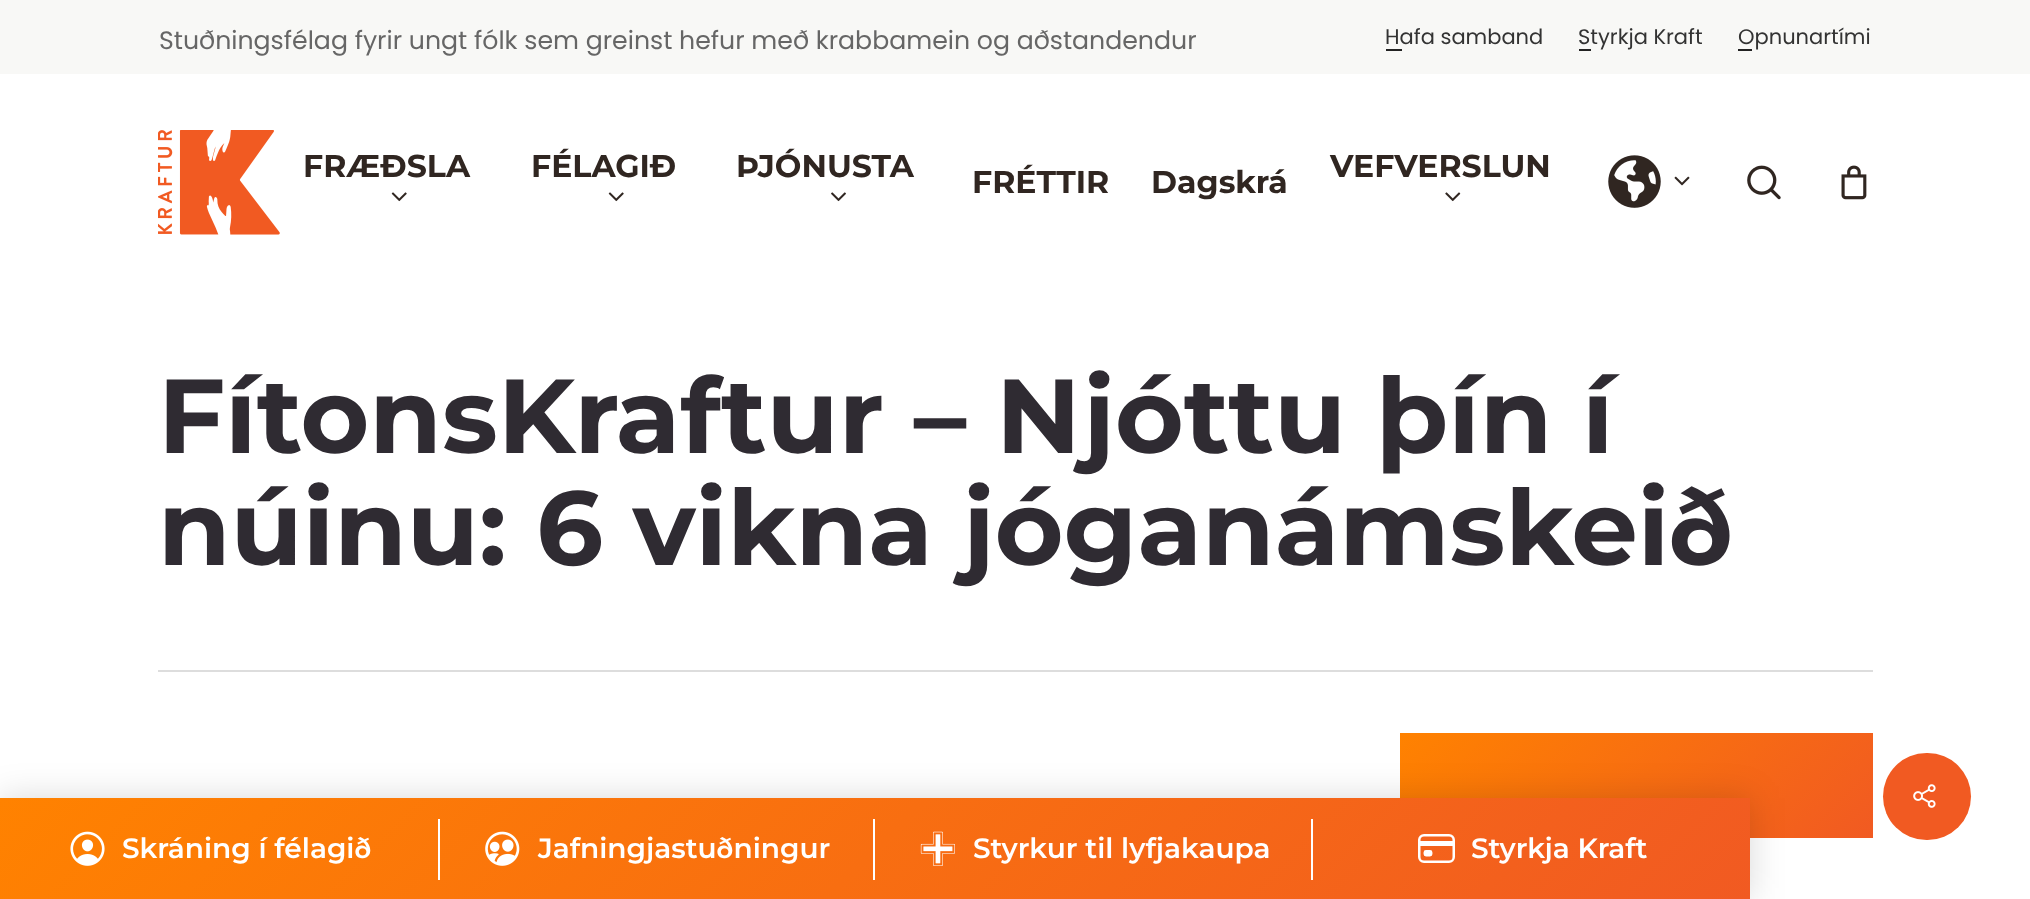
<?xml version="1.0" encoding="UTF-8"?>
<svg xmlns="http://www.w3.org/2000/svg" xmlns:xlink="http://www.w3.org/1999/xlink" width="2030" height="899">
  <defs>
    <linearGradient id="g1" gradientUnits="userSpaceOnUse" x1="1492" y1="641" x2="1781" y2="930"><stop offset="0" stop-color="#ff8200" /><stop offset="1" stop-color="#f15a22" /></linearGradient>
    <linearGradient id="g2" gradientUnits="userSpaceOnUse" x1="412" y1="386" x2="1338" y2="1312"><stop offset="0" stop-color="#ff8200" /><stop offset="1" stop-color="#f15a22" /></linearGradient>
  </defs>
  <rect width="100%" height="100%" fill="#ffffff" />
  <rect width="2030" height="74" fill="#f8f8f6" />
  <rect x="1386" y="49" width="16" height="2" fill="#222222" />
  <image x="158" y="130" width="122" height="105" xlink:href="image1.png" />
  <image x="391" y="192" width="16" height="10" xlink:href="image2.png" />
  <image x="608" y="192" width="16" height="10" xlink:href="image2.png" />
  <image x="831" y="192" width="15" height="10" xlink:href="image3.png" />
  <image x="1445" y="192" width="16" height="10" xlink:href="image4.png" />
  <image x="1608" y="155" width="53" height="53" xlink:href="image5.png" />
  <image x="1674" y="176" width="16" height="10" xlink:href="image6.png" />
  <image x="1747" y="165" width="34" height="35" xlink:href="image7.png" />
  <image x="1841" y="165" width="26" height="35" xlink:href="image8.png" />
  <rect x="158" y="670" width="1715" height="2" fill="#dddddd" />
  <rect x="1400" y="733" width="473" height="105" fill="url(#g1)" />
  <rect x="1883" y="753" width="88" height="87" rx="43.5" fill="#f15a22" />
  <image x="1913" y="784" width="23" height="24" xlink:href="image9.png" />
  <rect y="798" width="1750" height="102" fill="#000000" fill-opacity="0.15" filter="blur(17.5px)" />
  <rect y="798" width="1750" height="101" fill="url(#g2)" />
  <image x="70" y="831" width="35" height="35" xlink:href="image10.png" />
  <rect x="438" y="819" width="2" height="61" fill="#ffffff" />
  <image x="485" y="831" width="35" height="35" xlink:href="image11.png" />
  <rect x="873" y="819" width="2" height="61" fill="#ffffff" />
  <image x="920" y="831" width="35" height="35" xlink:href="image12.png" />
  <rect x="1311" y="819" width="2" height="61" fill="#ffffff" />
  <rect x="1419.25" y="835.25" width="34.5" height="26.5" rx="4.75" fill="none" stroke="#ffffff" stroke-width="2.5" />
  <path d="M 1419.5 843.5 h 34.5 m -28 9 h 4 v 1.5 h -4 z" fill="none" stroke="#ffffff" stroke-width="4.9" stroke-linejoin="round" />
  <text x="159" y="49" style="font-family: Poppins; font-size: 25.2px; fill: #666666">Stuðningsfélag fyrir ungt fólk sem greinst hefur með krabbamein og aðstandendur</text>
  <text x="1385" y="44" style="font-family: Poppins; font-size: 21px; fill: #333333">Hafa samband</text>
  <text x="1578" y="44" style="font-family: Poppins; font-size: 21px; fill: #333333">Styrkja Kraft</text>
  <rect x="1579" y="49" width="12" height="2" fill="#222222" />
  <text x="1738" y="44" style="font-family: Poppins; font-size: 21px; fill: #333333">Opnunartími</text>
  <rect x="1738" y="49" width="14" height="2" fill="#222222" />
  <text x="303" y="177" style="font-family: Montserrat; font-size: 31.5px; font-weight: bold; fill: #302621">FRÆÐSLA</text>
  <text x="531" y="177" style="font-family: Montserrat; font-size: 31.5px; font-weight: bold; fill: #302621">FÉLAGIÐ</text>
  <text x="736" y="177" style="font-family: Montserrat; font-size: 31.5px; font-weight: bold; fill: #302621">ÞJÓNUSTA</text>
  <text x="972" y="193" style="font-family: Montserrat; font-size: 31.5px; font-weight: bold; fill: #302621">FRÉTTIR</text>
  <text x="1151" y="193" style="font-family: Montserrat; font-size: 31.5px; font-weight: bold; fill: #302621">Dagskrá</text>
  <text x="1330" y="177" style="font-family: Montserrat; font-size: 31.5px; font-weight: bold; fill: #302621">VEFVERSLUN</text>
  <text x="158" y="453" style="font-family: Montserrat; font-size: 105px; font-weight: bold; fill: #2f2b32">FítonsKraftur – Njóttu þín í</text>
  <text x="158" y="565" style="font-family: Montserrat; font-size: 105px; font-weight: bold; fill: #2f2b32">núinu: 6 vikna jóganámskeið</text>
  <text x="122" y="858" style="font-family: Montserrat; font-size: 28px; font-weight: 600; fill: #ffffff">Skráning í félagið</text>
  <text x="538" y="858" style="font-family: Montserrat; font-size: 28px; font-weight: 600; fill: #ffffff">Jafningjastuðningur</text>
  <text x="973" y="858" style="font-family: Montserrat; font-size: 28px; font-weight: 600; fill: #ffffff">Styrkur til lyfjakaupa</text>
  <text x="1471" y="858" style="font-family: Montserrat; font-size: 28px; font-weight: 600; fill: #ffffff">Styrkja Kraft</text>
</svg>
